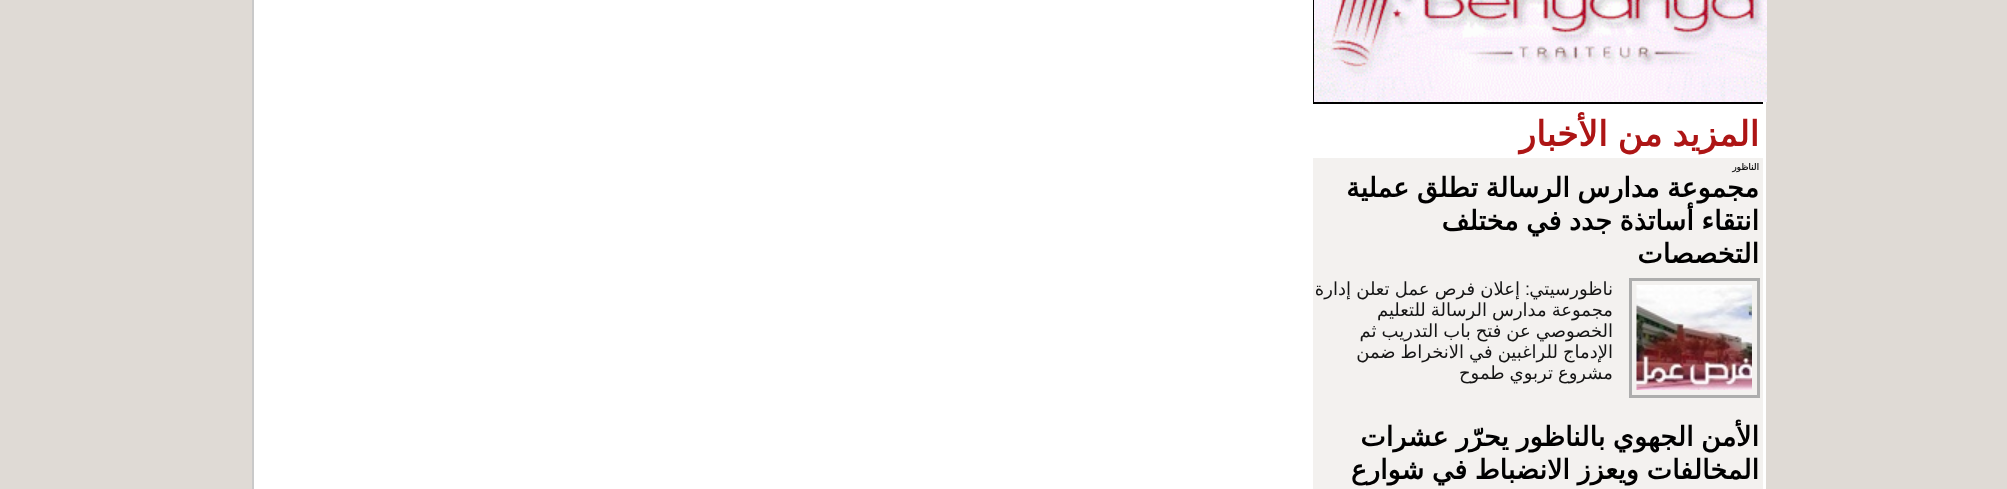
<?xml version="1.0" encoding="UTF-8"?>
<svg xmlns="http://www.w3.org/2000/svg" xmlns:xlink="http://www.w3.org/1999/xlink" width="2007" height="489">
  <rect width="100%" height="100%" fill="#dfdad5" />
  <rect x="253" y="-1" width="1501" height="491" fill="none" stroke="#c9c9c9" stroke-width="2" />
  <rect x="254" width="1512" height="489" fill="#ffffff" />
  <rect x="1314" y="-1" width="448" height="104" fill="none" stroke="#000000" stroke-width="2" />
  <image x="1314" y="0" width="453" height="102" xlink:href="image1.png" />
  <rect x="1313" y="158" width="450" height="331" fill="#f3f1ef" />
  <rect x="1630.5" y="279.5" width="128" height="117" fill="none" stroke="#adadad" stroke-width="3" />
  <image x="1636" y="285" width="116" height="105" xlink:href="image2.png" />
  <text x="1759" y="146" word-spacing="-1" style="font-family: DejaVu Sans; font-size: 34.5px; font-weight: bold; direction: rtl; fill: #ad1515">المزيد من الأخبار</text>
  <text x="1759" y="170" style="font-family: DejaVu Sans; font-size: 9px; font-weight: bold; direction: rtl; fill: #151515">الناظور</text>
  <text x="1759" y="197" word-spacing="-1" style="font-family: DejaVu Sans; font-size: 27px; font-weight: bold; direction: rtl; fill: #000000">مجموعة مدارس الرسالة تطلق عملية</text>
  <text x="1759" y="230" word-spacing="-1" style="font-family: DejaVu Sans; font-size: 27px; font-weight: bold; direction: rtl; fill: #000000">انتقاء أساتذة جدد في مختلف</text>
  <text x="1759" y="263" style="font-family: DejaVu Sans; font-size: 27px; font-weight: bold; direction: rtl; fill: #000000">التخصصات</text>
  <text x="1613" y="295" style="font-family: DejaVu Sans; font-size: 18px; direction: rtl; fill: #151515">ناظورسيتي</text>
  <text x="1530" y="295" style="font-family: Liberation Sans; font-size: 18px; direction: rtl; fill: #151515">:</text>
  <text x="1520" y="295" word-spacing="-0.5" style="font-family: DejaVu Sans; font-size: 18px; direction: rtl; fill: #151515">إعلان فرص عمل تعلن إدارة</text>
  <text x="1613" y="316" word-spacing="-0.75" style="font-family: DejaVu Sans; font-size: 18px; direction: rtl; fill: #151515">مجموعة مدارس الرسالة للتعليم</text>
  <text x="1613" y="337" word-spacing="-0.75" style="font-family: DejaVu Sans; font-size: 18px; direction: rtl; fill: #151515">الخصوصي عن فتح باب التدريب ثم</text>
  <text x="1613" y="358" word-spacing="-0.75" style="font-family: DejaVu Sans; font-size: 18px; direction: rtl; fill: #151515">الإدماج للراغبين في الانخراط ضمن</text>
  <text x="1613" y="379" word-spacing="-0.75" style="font-family: DejaVu Sans; font-size: 18px; direction: rtl; fill: #151515">مشروع تربوي طموح</text>
  <text x="1759" y="446" word-spacing="-1" style="font-family: DejaVu Sans; font-size: 27px; font-weight: bold; direction: rtl; fill: #000000">الأمن الجهوي بالناظور يحرّر عشرات</text>
  <text x="1759" y="479" word-spacing="-1" style="font-family: DejaVu Sans; font-size: 27px; font-weight: bold; direction: rtl; fill: #000000">المخالفات ويعزز الانضباط في شوارع</text>
</svg>
